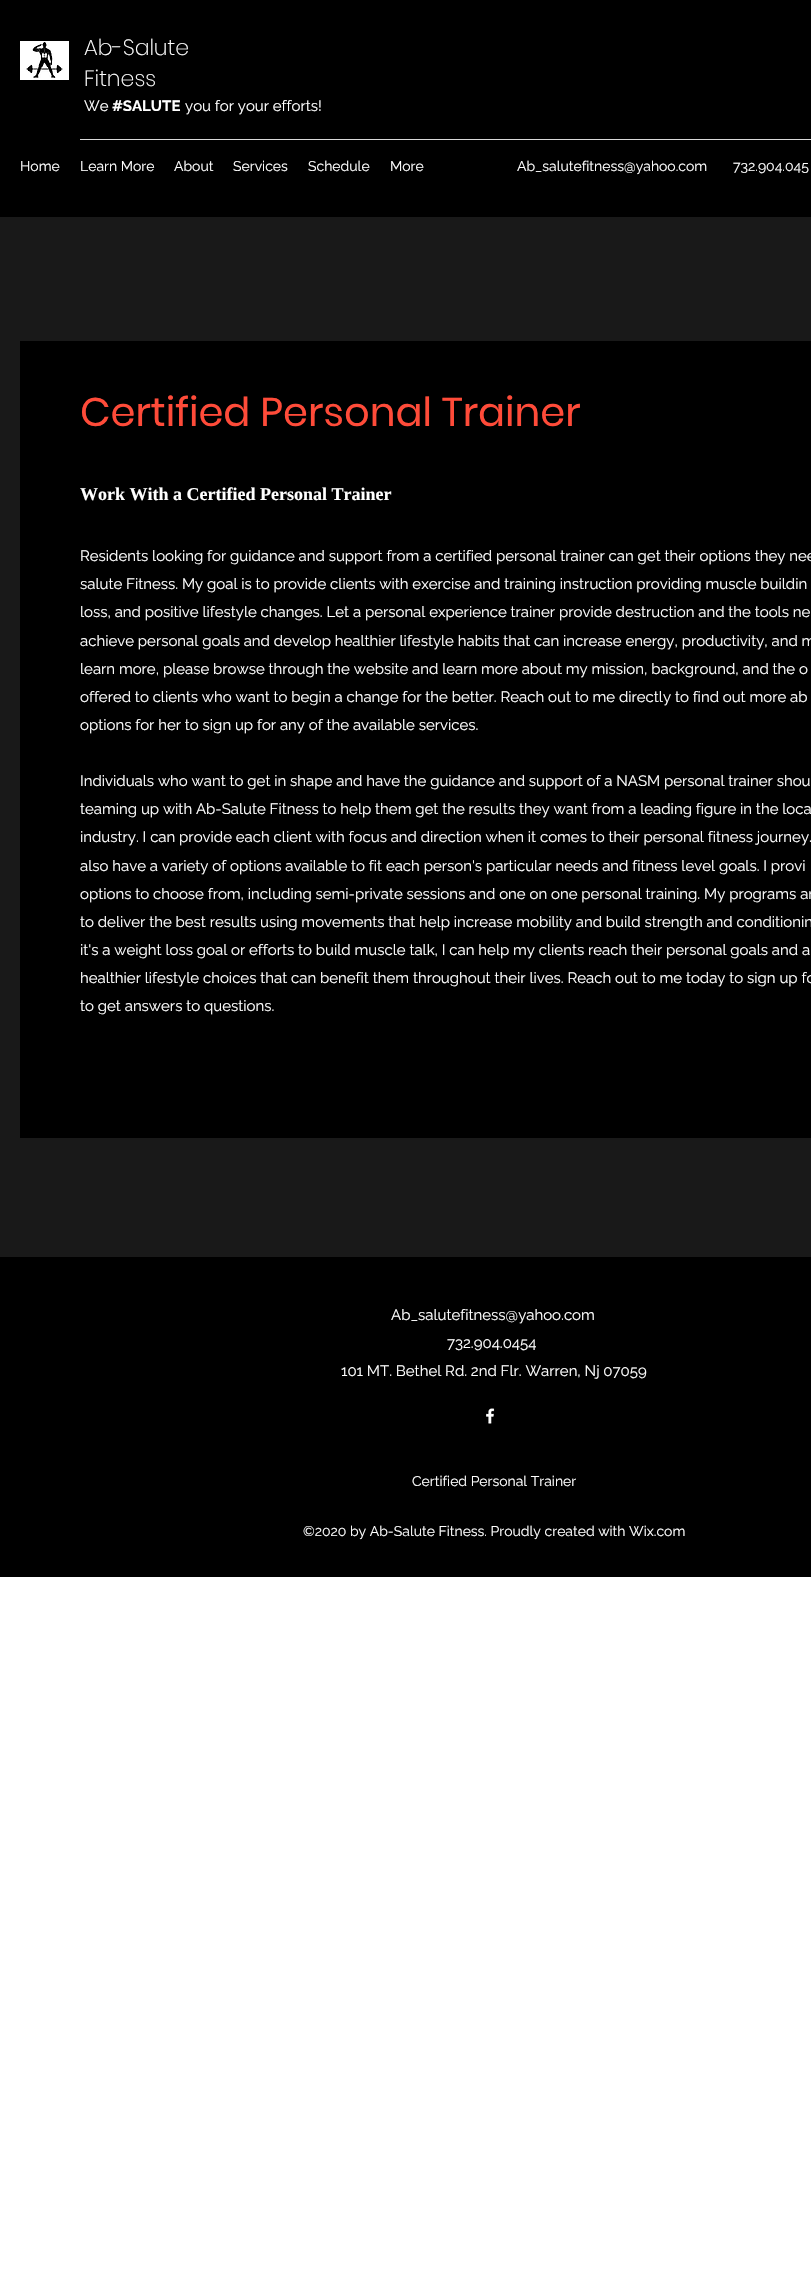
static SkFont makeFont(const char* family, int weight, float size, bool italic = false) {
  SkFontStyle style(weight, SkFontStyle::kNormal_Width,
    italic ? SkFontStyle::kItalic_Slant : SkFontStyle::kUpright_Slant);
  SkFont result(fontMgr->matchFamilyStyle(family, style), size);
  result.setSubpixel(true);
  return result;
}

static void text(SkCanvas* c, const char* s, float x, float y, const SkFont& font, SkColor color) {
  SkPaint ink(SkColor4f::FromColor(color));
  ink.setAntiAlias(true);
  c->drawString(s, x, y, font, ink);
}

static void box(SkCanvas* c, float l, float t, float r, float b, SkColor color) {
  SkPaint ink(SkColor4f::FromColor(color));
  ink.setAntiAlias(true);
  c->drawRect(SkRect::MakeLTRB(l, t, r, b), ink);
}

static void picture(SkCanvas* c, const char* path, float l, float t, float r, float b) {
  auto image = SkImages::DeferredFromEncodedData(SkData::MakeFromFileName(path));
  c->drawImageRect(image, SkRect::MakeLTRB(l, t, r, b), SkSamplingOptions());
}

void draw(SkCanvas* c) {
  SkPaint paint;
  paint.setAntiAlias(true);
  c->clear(0xffffffff);
  box(c, 0, 0, 811, 217, 0xff000000);
  picture(c, "img_01.png", 20, 41, 69, 80);
  SkFont face1 = makeFont("Poppins", 200, 22);
  text(c, "Ab-Salute", 84, 55, face1, 0xffffffff);
  text(c, "Fitness", 84, 86, face1, 0xffffffff);
  SkFont face2 = makeFont("Raleway", 400, 15);
  text(c, "We", 84, 111, face2, 0xffffffff);
  SkFont face3 = makeFont("Raleway", 700, 15);
  text(c, "#SALUTE", 112, 111, face3, 0xffffffff);
  text(c, "you for your efforts!", 185, 111, face2, 0xffffffff);
  box(c, 80, 139, 811, 140, 0xffd9d9d9);
  SkFont face4 = makeFont("Raleway", 400, 14);
  text(c, "Home", 20, 171, face4, 0xffffffff);
  text(c, "Learn More", 80, 171, face4, 0xffffffff);
  text(c, "About", 174, 171, face4, 0xffffffff);
  text(c, "Services", 233, 171, face4, 0xffffffff);
  text(c, "Schedule", 308, 171, face4, 0xffffffff);
  text(c, "More", 390, 171, face4, 0xffffffff);
  text(c, "Ab_salutefitness@yahoo.com", 517, 171, face4, 0xffffffff);
  text(c, "732.904.045", 733, 171, face4, 0xffffffff);
  box(c, 0, 217, 811, 1257, 0xff191919);
  box(c, 20, 341, 811, 1138, 0xff000000);
  SkFont face5 = makeFont("Poppins", 400, 40);
  text(c, "Certified Personal Trainer", 80, 426, face5, 0xffff4b39);
  SkFont face6 = makeFont("Liberation Serif", 700, 18);
  text(c, "Work With a Certified Personal Trainer", 80, 500, face6, 0xffffffff);
  text(c, "Residents looking for guidance and support from a certified personal trainer can get their options they nee", 80, 561, face2, 0xffffffff);
  text(c, "salute Fitness. My goal is to provide clients with exercise and training instruction providing muscle buildin", 80, 589, face2, 0xffffffff);
  text(c, "loss, and positive lifestyle changes. Let a personal experience trainer provide destruction and the tools ne", 80, 617, face2, 0xffffffff);
  text(c, "achieve personal goals and develop healthier lifestyle habits that can increase energy, productivity, and m", 80, 646, face2, 0xffffffff);
  text(c, "learn more, please browse through the website and learn more about my mission, background, and the o", 80, 674, face2, 0xffffffff);
  text(c, "offered to clients who want to begin a change for the better. Reach out to me directly to find out more ab", 80, 702, face2, 0xffffffff);
  text(c, "options for her to sign up for any of the available services.", 80, 730, face2, 0xffffffff);
  text(c, "Individuals who want to get in shape and have the guidance and support of a NASM personal trainer shou", 80, 786, face2, 0xffffffff);
  text(c, "teaming up with Ab-Salute Fitness to help them get the results they want from a leading figure in the loca", 80, 814, face2, 0xffffffff);
  text(c, "industry. I can provide each client with focus and direction when it comes to their personal fitness journey.", 80, 842, face2, 0xffffffff);
  text(c, "also have a variety of options available to fit each person's particular needs and fitness level goals. I provi", 80, 871, face2, 0xffffffff);
  text(c, "options to choose from, including semi-private sessions and one on one personal training. My programs ar", 80, 899, face2, 0xffffffff);
  text(c, "to deliver the best results using movements that help increase mobility and build strength and conditionin", 80, 927, face2, 0xffffffff);
  text(c, "it's a weight loss goal or efforts to build muscle talk, I can help my clients reach their personal goals and a", 80, 955, face2, 0xffffffff);
  text(c, "healthier lifestyle choices that can benefit them throughout their lives. Reach out to me today to sign up fo", 80, 983, face2, 0xffffffff);
  text(c, "to get answers to questions.", 80, 1011, face2, 0xffffffff);
  box(c, 0, 1257, 811, 1577, 0xff000000);
  text(c, "Ab_salutefitness@yahoo.com", 391, 1320, face2, 0xffffffff);
  text(c, "732.904.0454", 447, 1348, face2, 0xffffffff);
  text(c, "101 MT. Bethel Rd. 2nd Flr. Warren, Nj 07059", 341, 1376, face2, 0xffffffff);
  picture(c, "img_02.png", 486, 1408, 495, 1424);
  text(c, "Certified Personal Trainer", 412, 1486, face4, 0xffffffff);
  text(c, "©2020 by Ab-Salute Fitness. Proudly created with Wix.com", 303, 1536, face4, 0xffffffff);
}
